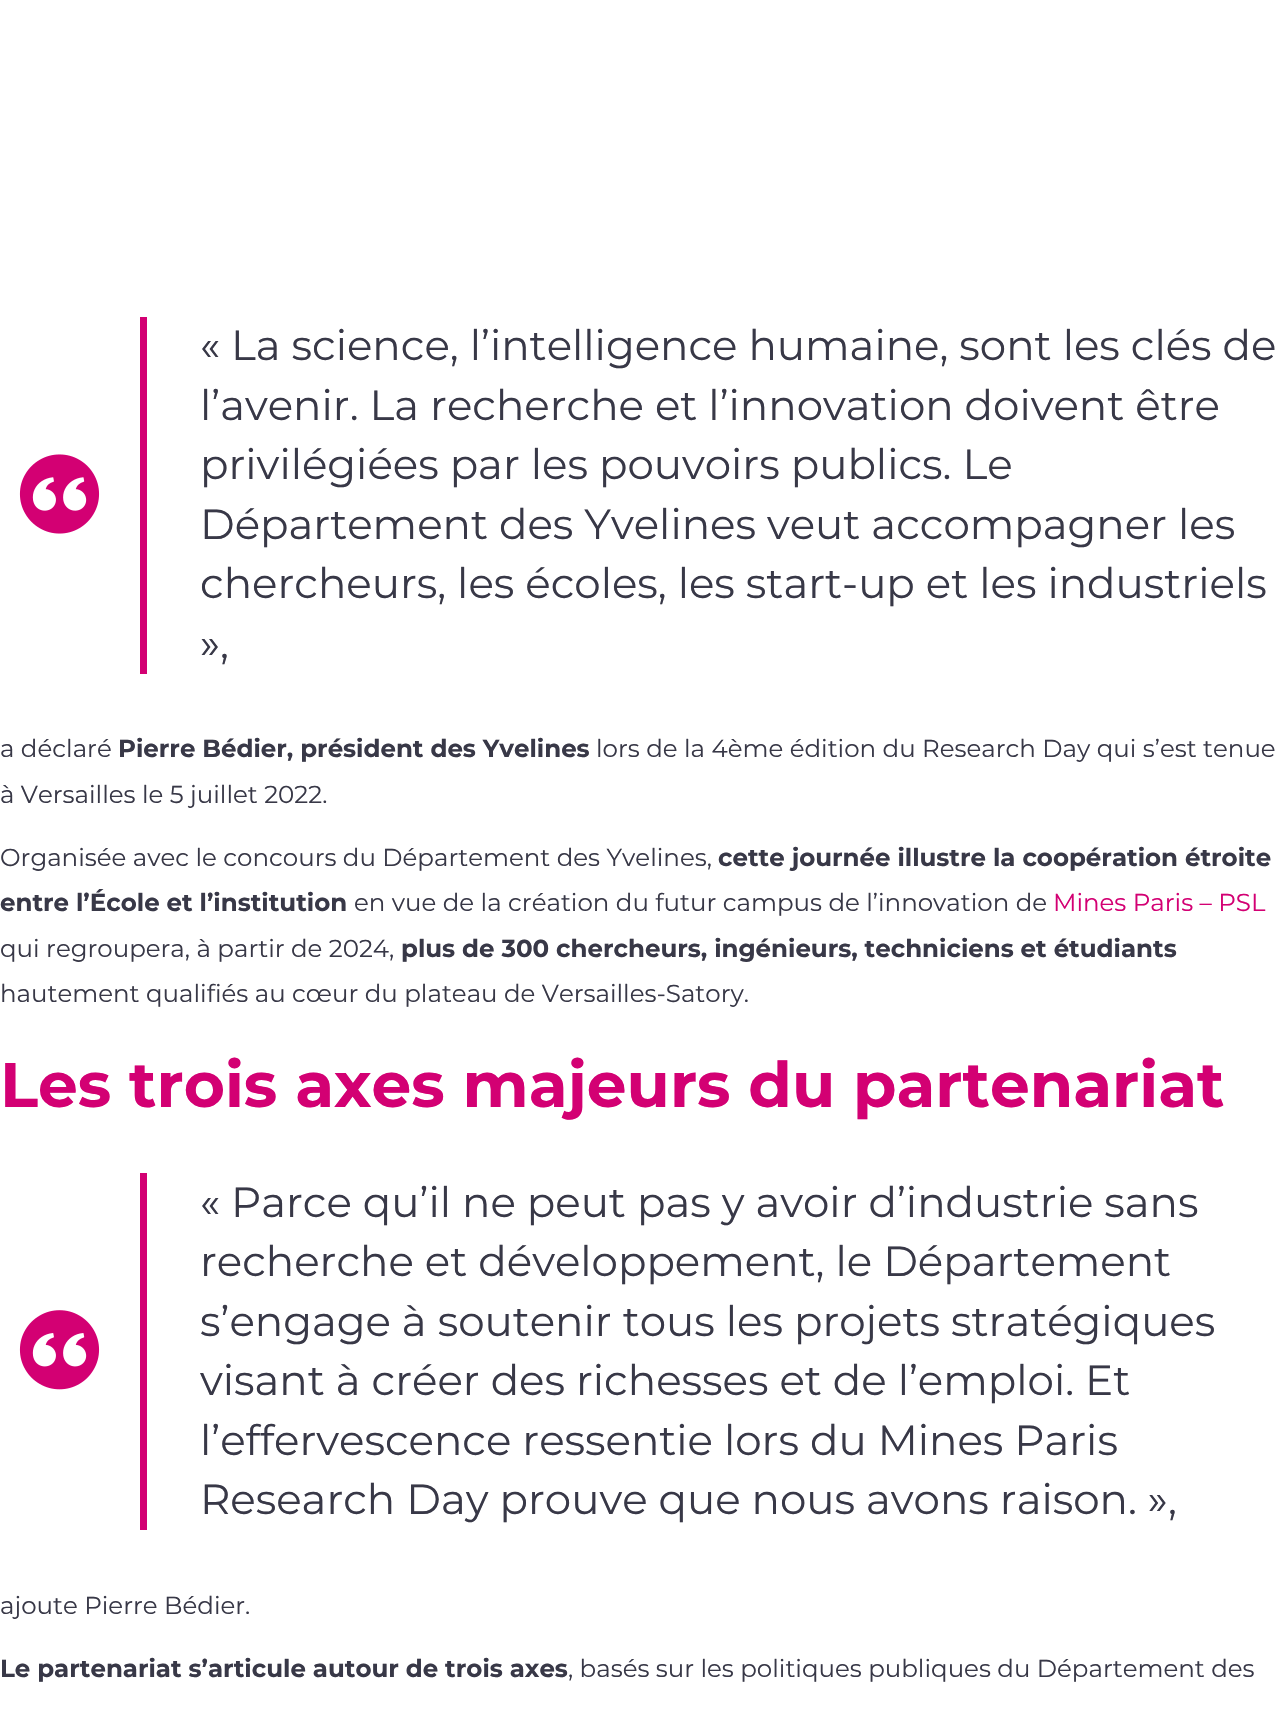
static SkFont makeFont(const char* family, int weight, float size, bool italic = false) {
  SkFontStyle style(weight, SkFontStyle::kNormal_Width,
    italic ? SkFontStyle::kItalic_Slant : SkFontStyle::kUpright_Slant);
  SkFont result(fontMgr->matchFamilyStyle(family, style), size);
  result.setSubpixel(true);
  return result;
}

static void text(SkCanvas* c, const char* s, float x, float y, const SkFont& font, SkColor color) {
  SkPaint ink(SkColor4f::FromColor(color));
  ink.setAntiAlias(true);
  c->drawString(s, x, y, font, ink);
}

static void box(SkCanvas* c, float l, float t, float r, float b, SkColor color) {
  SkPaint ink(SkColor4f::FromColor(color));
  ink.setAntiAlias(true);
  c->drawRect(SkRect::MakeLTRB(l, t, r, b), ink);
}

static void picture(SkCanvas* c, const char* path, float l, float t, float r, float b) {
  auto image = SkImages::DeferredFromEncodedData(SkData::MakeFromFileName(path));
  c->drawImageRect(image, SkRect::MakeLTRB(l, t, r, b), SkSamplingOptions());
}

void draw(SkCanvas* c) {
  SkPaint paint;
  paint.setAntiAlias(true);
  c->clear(0xffffffff);
  box(c, 140, 317, 147, 674, 0xffd30073);
  picture(c, "img_01.png", 19, 454, 100, 534);
  SkFont face1 = makeFont("Montserrat", 400, 42);
  text(c, "« La science, l’intelligence humaine, sont les clés de", 200, 360, face1, 0xff383847);
  text(c, "l’avenir. La recherche et l’innovation doivent être", 200, 420, face1, 0xff383847);
  text(c, "privilégiées par les pouvoirs publics. Le", 200, 479, face1, 0xff383847);
  text(c, "Département des Yvelines veut accompagner les", 200, 539, face1, 0xff383847);
  text(c, "chercheurs, les écoles, les start-up et les industriels", 200, 598, face1, 0xff383847);
  text(c, "»,", 200, 658, face1, 0xff383847);
  SkFont face2 = makeFont("Montserrat", 400, 24.5f);
  text(c, "a déclaré", 0, 757, face2, 0xff383847);
  SkFont face3 = makeFont("Montserrat", 700, 24.5f);
  text(c, "Pierre Bédier, président des Yvelines", 118, 757, face3, 0xff383847);
  text(c, "lors de la 4ème édition du Research Day qui s’est tenue", 596, 757, face2, 0xff383847);
  text(c, "à Versailles le 5 juillet 2022.", 0, 803, face2, 0xff383847);
  text(c, "Organisée avec le concours du Département des Yvelines,", 0, 866, face2, 0xff383847);
  text(c, "cette journée illustre la coopération étroite", 718, 866, face3, 0xff383847);
  text(c, "entre l’École et l’institution", 0, 911, face3, 0xff383847);
  text(c, "en vue de la création du futur campus de l’innovation de", 354, 911, face2, 0xff383847);
  text(c, "Mines Paris – PSL", 1053, 911, face2, 0xffd30073);
  text(c, "qui regroupera, à partir de 2024,", 0, 957, face2, 0xff383847);
  text(c, "plus de 300 chercheurs, ingénieurs, techniciens et étudiants", 401, 957, face3, 0xff383847);
  text(c, "hautement qualifiés au cœur du plateau de Versailles-Satory.", 0, 1002, face2, 0xff383847);
  SkFont face4 = makeFont("Montserrat", 700, 63);
  text(c, "Les trois axes majeurs du partenariat", 0, 1107, face4, 0xffd30073);
  box(c, 140, 1173, 147, 1530, 0xffd30073);
  picture(c, "img_02.png", 19, 1310, 100, 1390);
  text(c, "« Parce qu’il ne peut pas y avoir d’industrie sans", 200, 1217, face1, 0xff383847);
  text(c, "recherche et développement, le Département", 200, 1276, face1, 0xff383847);
  text(c, "s’engage à soutenir tous les projets stratégiques", 200, 1336, face1, 0xff383847);
  text(c, "visant à créer des richesses et de l’emploi. Et", 200, 1395, face1, 0xff383847);
  text(c, "l’effervescence ressentie lors du Mines Paris", 200, 1455, face1, 0xff383847);
  text(c, "Research Day prouve que nous avons raison. »,", 200, 1514, face1, 0xff383847);
  text(c, "ajoute Pierre Bédier.", 0, 1614, face2, 0xff383847);
  text(c, "Le partenariat s’articule autour de trois axes", 0, 1677, face3, 0xff383847);
  text(c, ", basés sur les politiques publiques du Département des", 568, 1677, face2, 0xff383847);
}
